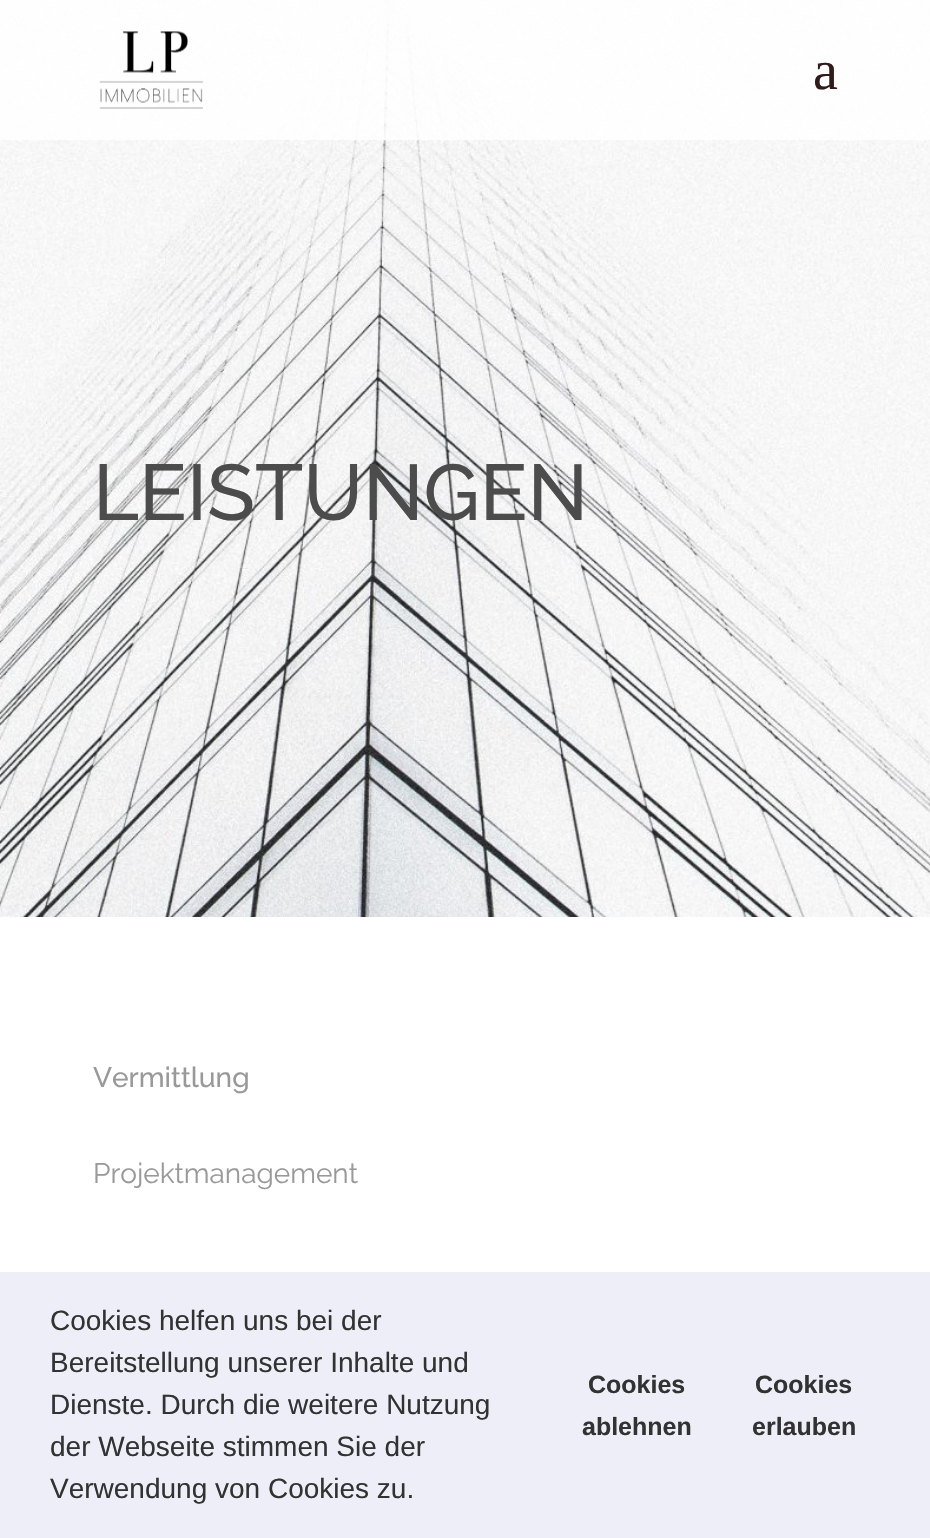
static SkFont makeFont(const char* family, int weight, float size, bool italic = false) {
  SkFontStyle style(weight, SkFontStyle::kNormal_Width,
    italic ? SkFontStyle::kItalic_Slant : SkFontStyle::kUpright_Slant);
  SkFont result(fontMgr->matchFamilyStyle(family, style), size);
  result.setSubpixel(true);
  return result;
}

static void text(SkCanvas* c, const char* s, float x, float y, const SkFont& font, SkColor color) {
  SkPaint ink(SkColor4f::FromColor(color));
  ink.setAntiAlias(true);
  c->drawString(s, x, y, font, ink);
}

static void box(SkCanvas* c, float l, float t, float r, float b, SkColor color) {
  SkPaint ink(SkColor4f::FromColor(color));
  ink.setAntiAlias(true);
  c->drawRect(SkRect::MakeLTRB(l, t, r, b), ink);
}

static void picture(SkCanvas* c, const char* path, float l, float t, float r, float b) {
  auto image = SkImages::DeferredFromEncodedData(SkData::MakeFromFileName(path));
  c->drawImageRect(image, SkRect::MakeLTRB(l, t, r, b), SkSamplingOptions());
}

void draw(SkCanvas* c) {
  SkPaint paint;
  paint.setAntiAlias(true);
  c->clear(0xffffffff);
  picture(c, "img_02.png", 0, 0, 930, 917);
  box(c, 0, 0, 930, 140, 0xcfffffff);
  picture(c, "img_01.png", 99, 31, 203, 109);
  SkFont face1 = makeFont("Liberation Serif", 400, 56);
  text(c, "a", 813, 89, face1, 0xff301b1b);
  SkFont face2 = makeFont("Raleway", 100, 78.75f);
  text(c, "LEISTUNGEN", 93, 520, face2, 0xff4c4c4c);
  SkFont face3 = makeFont("Raleway", 100, 28);
  text(c, "Vermittlung", 93, 1087, face3, 0xff999999);
  SkFont face4 = makeFont("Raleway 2", 100, 28);
  text(c, "Projektmanagement", 93, 1183, face4, 0xff999999);
  box(c, 0, 1272, 930, 1538, 0xffeeeef8);
  SkFont face5 = makeFont("Liberation Sans", 400, 28);
  text(c, "Cookies helfen uns bei der", 50, 1330, face5, 0xff333232);
  text(c, "Bereitstellung unserer Inhalte und", 50, 1372, face5, 0xff333232);
  text(c, "Dienste. Durch die weitere Nutzung", 50, 1414, face5, 0xff333232);
  text(c, "der Webseite stimmen Sie der", 50, 1456, face5, 0xff333232);
  text(c, "Verwendung von Cookies zu.", 50, 1498, face5, 0xff333232);
  SkFont face6 = makeFont("Liberation Sans", 700, 25);
  text(c, "Cookies", 588, 1393, face6, 0xff333232);
  text(c, "ablehnen", 582, 1435, face6, 0xff333232);
  text(c, "Cookies", 755, 1393, face6, 0xff333232);
  text(c, "erlauben", 752, 1435, face6, 0xff333232);
}
